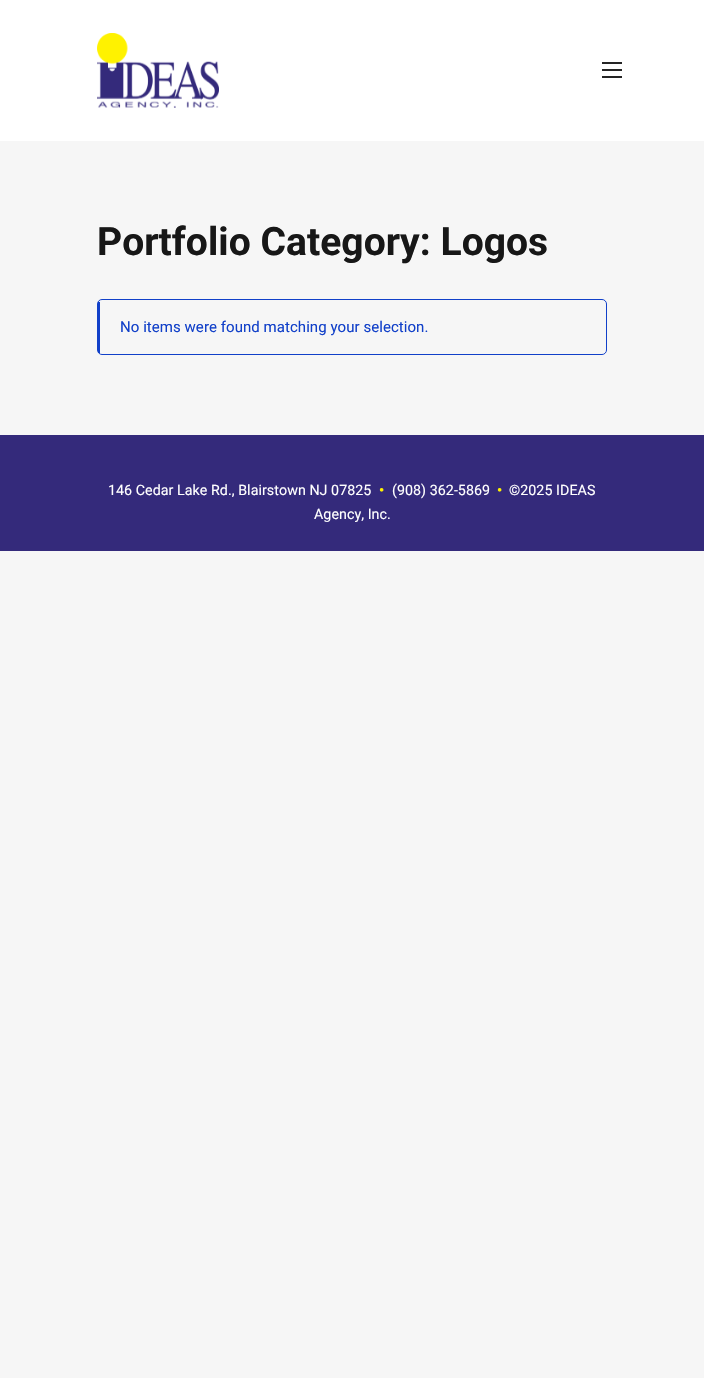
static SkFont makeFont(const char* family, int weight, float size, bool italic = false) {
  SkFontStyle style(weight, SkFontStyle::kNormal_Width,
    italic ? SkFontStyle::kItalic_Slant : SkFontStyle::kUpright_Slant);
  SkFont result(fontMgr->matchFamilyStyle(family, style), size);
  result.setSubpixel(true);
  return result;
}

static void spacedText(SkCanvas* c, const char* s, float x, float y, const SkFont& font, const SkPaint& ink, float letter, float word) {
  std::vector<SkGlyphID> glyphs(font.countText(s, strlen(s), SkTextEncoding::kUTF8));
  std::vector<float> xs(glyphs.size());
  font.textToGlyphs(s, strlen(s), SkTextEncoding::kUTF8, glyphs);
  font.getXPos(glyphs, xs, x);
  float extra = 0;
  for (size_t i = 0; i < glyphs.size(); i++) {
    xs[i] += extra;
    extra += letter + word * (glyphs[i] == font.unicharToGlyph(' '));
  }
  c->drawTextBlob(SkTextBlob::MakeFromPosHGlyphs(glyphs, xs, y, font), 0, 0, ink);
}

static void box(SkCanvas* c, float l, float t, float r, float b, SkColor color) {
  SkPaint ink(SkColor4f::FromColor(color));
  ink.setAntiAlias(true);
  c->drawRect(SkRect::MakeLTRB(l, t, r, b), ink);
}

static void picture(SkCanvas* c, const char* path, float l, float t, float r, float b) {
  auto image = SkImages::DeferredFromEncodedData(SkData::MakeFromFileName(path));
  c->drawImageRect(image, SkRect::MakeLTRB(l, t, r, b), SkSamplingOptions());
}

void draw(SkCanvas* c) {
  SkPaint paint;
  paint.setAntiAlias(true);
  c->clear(0xfff6f6f6);
  box(c, 0, 0, 704, 141, 0xffffffff);
  picture(c, "img_01.png", 97, 33, 219, 108);
  box(c, 602, 62, 622, 64, 0xff252525);
  box(c, 602, 69, 622, 71, 0xff252525);
  box(c, 602, 76, 622, 78, 0xff252525);
  SkFont face1 = makeFont("Roboto", 700, 39);
  paint.setColor(0xff171717);
  spacedText(c, "Portfolio Category: Logos", 97, 255, face1, paint, 0.05f, 0);
  paint.setStyle(SkPaint::kStroke_Style);
  paint.setStrokeWidth(1);
  paint.setColor(0xff1140c9);
  c->drawRoundRect(SkRect::MakeLTRB(97.5f, 299.5f, 606.5f, 354.5f), 4.5f, 4.5f, paint);
  box(c, 98, 302, 100, 353, 0xff1140c9);
  SkFont face2 = makeFont("Roboto", 400, 15);
  paint.setStyle(SkPaint::kFill_Style);
  spacedText(c, "No items were found matching your selection.", 120, 332, face2, paint, 0.05f, 0);
  box(c, 0, 435, 704, 551, 0xff342a7b);
  SkFont face3 = makeFont("Roboto", 400, 14.25f);
  paint.setColor(0xffffffff);
  spacedText(c, "146 Cedar Lake Rd., Blairstown NJ 07825", 108, 495, face3, paint, 0.05f, 0);
  SkFont face4 = makeFont("Roboto", 700, 14.25f);
  paint.setColor(0xfffff200);
  spacedText(c, "•", 379, 495, face4, paint, 0.05f, 0);
  paint.setColor(0xffffffff);
  spacedText(c, "(908) 362-5869", 392, 495, face3, paint, 0.05f, 0);
  paint.setColor(0xfffff200);
  spacedText(c, "•", 497, 495, face4, paint, 0.05f, 0);
  paint.setColor(0xffffffff);
  spacedText(c, "©2025 IDEAS", 509, 495, face3, paint, 0.05f, 0);
  spacedText(c, "Agency, Inc.", 314, 519, face3, paint, 0.05f, 0);
}
